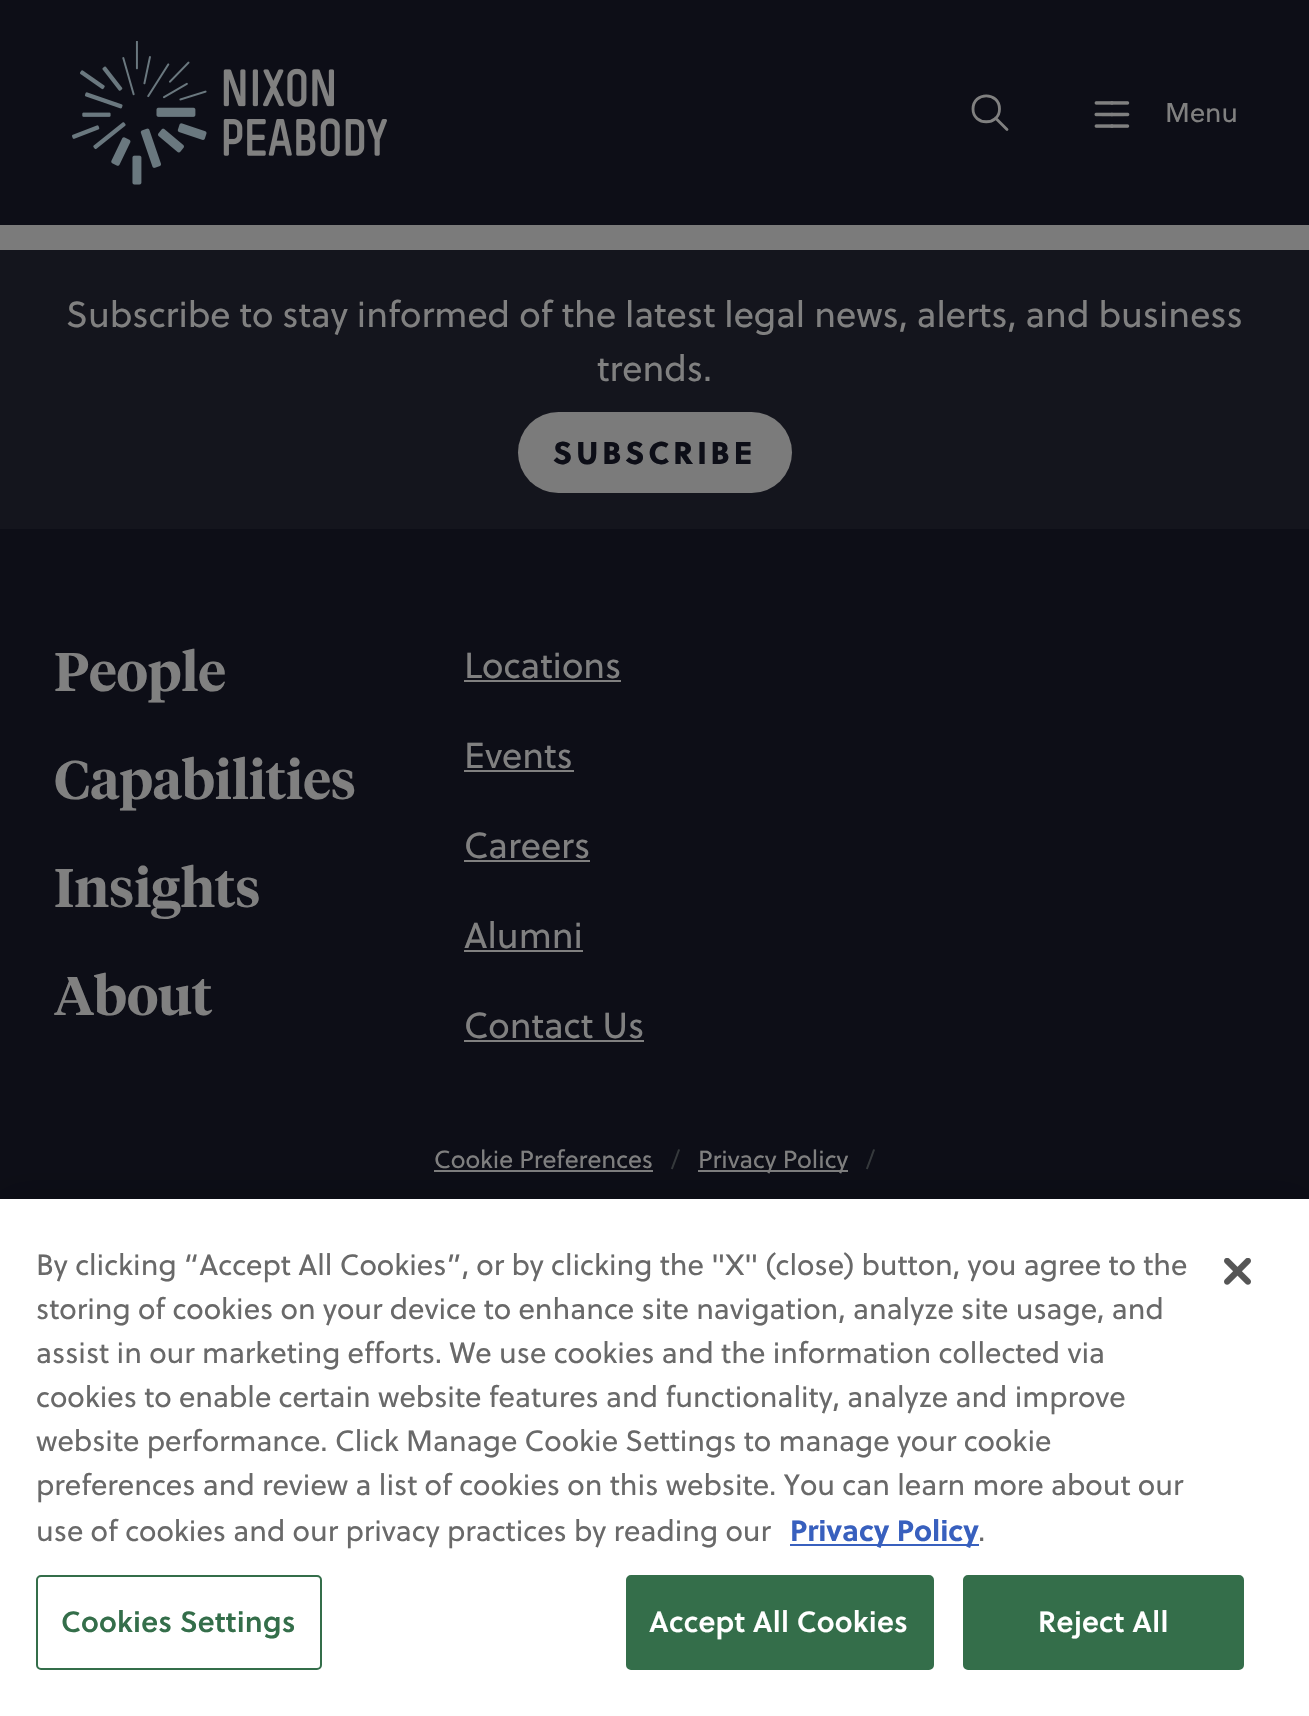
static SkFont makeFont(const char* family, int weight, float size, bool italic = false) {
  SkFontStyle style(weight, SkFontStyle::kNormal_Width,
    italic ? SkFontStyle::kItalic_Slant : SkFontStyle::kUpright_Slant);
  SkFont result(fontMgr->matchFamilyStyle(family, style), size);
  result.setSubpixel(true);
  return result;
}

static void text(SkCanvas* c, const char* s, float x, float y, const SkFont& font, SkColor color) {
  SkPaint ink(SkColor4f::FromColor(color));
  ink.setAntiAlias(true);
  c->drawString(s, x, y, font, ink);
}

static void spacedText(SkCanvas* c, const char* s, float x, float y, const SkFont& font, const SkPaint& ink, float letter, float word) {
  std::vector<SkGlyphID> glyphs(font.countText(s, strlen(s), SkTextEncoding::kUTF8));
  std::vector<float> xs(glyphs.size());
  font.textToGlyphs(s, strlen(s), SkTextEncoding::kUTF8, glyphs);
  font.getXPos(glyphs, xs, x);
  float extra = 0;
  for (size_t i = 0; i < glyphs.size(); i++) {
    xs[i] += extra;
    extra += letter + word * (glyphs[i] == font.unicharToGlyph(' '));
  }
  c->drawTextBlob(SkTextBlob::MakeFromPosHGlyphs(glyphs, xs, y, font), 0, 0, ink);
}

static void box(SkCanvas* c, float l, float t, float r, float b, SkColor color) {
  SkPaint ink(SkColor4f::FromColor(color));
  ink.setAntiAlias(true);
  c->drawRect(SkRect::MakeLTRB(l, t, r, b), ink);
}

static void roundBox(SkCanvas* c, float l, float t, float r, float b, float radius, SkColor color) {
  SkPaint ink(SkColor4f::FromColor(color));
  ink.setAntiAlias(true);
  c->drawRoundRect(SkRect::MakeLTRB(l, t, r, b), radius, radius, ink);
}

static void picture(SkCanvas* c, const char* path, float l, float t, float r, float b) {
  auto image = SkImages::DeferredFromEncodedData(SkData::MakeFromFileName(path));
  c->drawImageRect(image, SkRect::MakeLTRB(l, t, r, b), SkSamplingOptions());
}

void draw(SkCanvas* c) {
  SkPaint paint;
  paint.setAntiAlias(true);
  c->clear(0xff7b7b7b);
  box(c, 0, 0, 1309, 225, 0xff0d0e17);
  picture(c, "img_01.png", 72, 41, 387, 185);
  paint.setStyle(SkPaint::kStroke_Style);
  paint.setStrokeWidth(2.8f);
  paint.setStrokeCap(SkPaint::kRound_Cap);
  paint.setStrokeJoin(SkPaint::kRound_Join);
  paint.setColor(0xff808080);
  c->drawPath(SkPathBuilder().moveTo(1007, 129.5f).lineTo(995.5f, 118).moveTo(999.5f, 109).cubicTo(999.5f, 126, 973, 126, 973, 109).cubicTo(973, 91.5f, 999.5f, 91.5f, 999.5f, 109).close().detach(), paint);
  picture(c, "img_02.png", 1094, 101, 1130, 128);
  SkFont face1 = makeFont("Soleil", 400, 27);
  text(c, "Menu", 1165, 122, face1, 0xff808080);
  box(c, 0, 250, 1309, 529, 0xff14151d);
  SkFont face2 = makeFont("Soleil", 400, 36);
  text(c, "Subscribe to stay informed of the latest legal news, alerts, and business", 66, 327, face2, 0xff808080);
  text(c, "trends.", 597, 381, face2, 0xff808080);
  roundBox(c, 518, 412, 792, 493, 40.5f, 0xff7b7b7b);
  SkFont face3 = makeFont("Soleil", 800, 31.5f);
  paint.setStyle(SkPaint::kFill_Style);
  paint.setColor(0xff0d0e17);
  spacedText(c, "SUBSCRIBE", 553, 464, face3, paint, 3.75f, 0);
  box(c, 0, 529, 1309, 1199, 0xff0d0e17);
  SkFont face4 = makeFont("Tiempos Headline", 600, 54);
  text(c, "People", 54, 691, face4, 0xff808080);
  text(c, "Capabilities", 54, 799, face4, 0xff808080);
  text(c, "Insights", 54, 907, face4, 0xff808080);
  text(c, "About", 54, 1015, face4, 0xff808080);
  text(c, "Locations", 464, 678, face2, 0xff808080);
  box(c, 464, 680, 621, 682, 0xff808080);
  text(c, "Events", 464, 768, face2, 0xff808080);
  box(c, 464, 770, 574, 772, 0xff808080);
  text(c, "Careers", 464, 858, face2, 0xff808080);
  box(c, 464, 860, 590, 862, 0xff808080);
  text(c, "Alumni", 464, 948, face2, 0xff808080);
  box(c, 464, 950, 583, 952, 0xff808080);
  text(c, "Contact Us", 464, 1038, face2, 0xff808080);
  box(c, 464, 1040, 644, 1042, 0xff808080);
  SkFont face5 = makeFont("Soleil", 400, 24.75f);
  text(c, "Cookie Preferences", 434, 1168, face5, 0xff808080);
  box(c, 434, 1170, 653, 1172, 0xff808080);
  text(c, "/", 671, 1168, face5, 0xff35393c);
  box(c, 698, 1170, 848, 1172, 0xff808080);
  text(c, "Privacy Policy", 698, 1168, face5, 0xff808080);
  text(c, "/", 866, 1168, face5, 0xff35393c);
  paint.setColor(0x33000000);
  paint.setMaskFilter(SkMaskFilter::MakeBlur(kNormal_SkBlurStyle, 20));
  c->drawRect(SkRect::MakeLTRB(0, 1199, 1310, 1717), paint);
  paint.setMaskFilter(nullptr);
  box(c, 0, 1199, 1309, 1716, 0xffffffff);
  SkFont face6 = makeFont("Soleil", 400, 29.25f);
  text(c, "By clicking “Accept All Cookies”, or by clicking the \"X\" (close) button, you agree to the", 36, 1275, face6, 0xff696969);
  text(c, "storing of cookies on your device to enhance site navigation, analyze site usage, and", 36, 1319, face6, 0xff696969);
  text(c, "assist in our marketing efforts. We use cookies and the information collected via", 36, 1363, face6, 0xff696969);
  text(c, "cookies to enable certain website features and functionality, analyze and improve", 36, 1407, face6, 0xff696969);
  text(c, "website performance. Click Manage Cookie Settings to manage your cookie", 36, 1451, face6, 0xff696969);
  text(c, "preferences and review a list of cookies on this website. You can learn more about our", 36, 1495, face6, 0xff696969);
  text(c, "use of cookies and our privacy practices by reading our", 36, 1541, face6, 0xff696969);
  box(c, 790, 1544, 979, 1546, 0xff3860be);
  SkFont face7 = makeFont("Soleil", 700, 29.25f);
  text(c, "Privacy Policy", 790, 1541, face7, 0xff3860be);
  text(c, ".", 978, 1541, face6, 0xff696969);
  paint.setStyle(SkPaint::kStroke_Style);
  paint.setStrokeWidth(2);
  paint.setStrokeCap(SkPaint::kButt_Cap);
  paint.setStrokeJoin(SkPaint::kMiter_Join);
  paint.setColor(0xff346e4a);
  c->drawRoundRect(SkRect::MakeLTRB(37, 1576, 321, 1669), 4, 4, paint);
  SkFont face8 = makeFont("Soleil", 600, 29.25f);
  paint.setStyle(SkPaint::kFill_Style);
  spacedText(c, "Cookies Settings", 61, 1632, face8, paint, 0.25f, 0);
  c->drawRoundRect(SkRect::MakeLTRB(627, 1576, 933, 1669), 4, 4, paint);
  paint.setStyle(SkPaint::kStroke_Style);
  c->drawRoundRect(SkRect::MakeLTRB(627, 1576, 933, 1669), 4, 4, paint);
  paint.setStyle(SkPaint::kFill_Style);
  paint.setColor(0xffffffff);
  spacedText(c, "Accept All Cookies", 649, 1632, face8, paint, 0.25f, 0);
  paint.setColor(0xff346e4a);
  c->drawRoundRect(SkRect::MakeLTRB(964, 1576, 1243, 1669), 4, 4, paint);
  paint.setStyle(SkPaint::kStroke_Style);
  c->drawRoundRect(SkRect::MakeLTRB(964, 1576, 1243, 1669), 4, 4, paint);
  paint.setStyle(SkPaint::kFill_Style);
  paint.setColor(0xffffffff);
  spacedText(c, "Reject All", 1038, 1632, face8, paint, 0.25f, 0);
  picture(c, "img_03.png", 1224, 1258, 1251, 1285);
}
